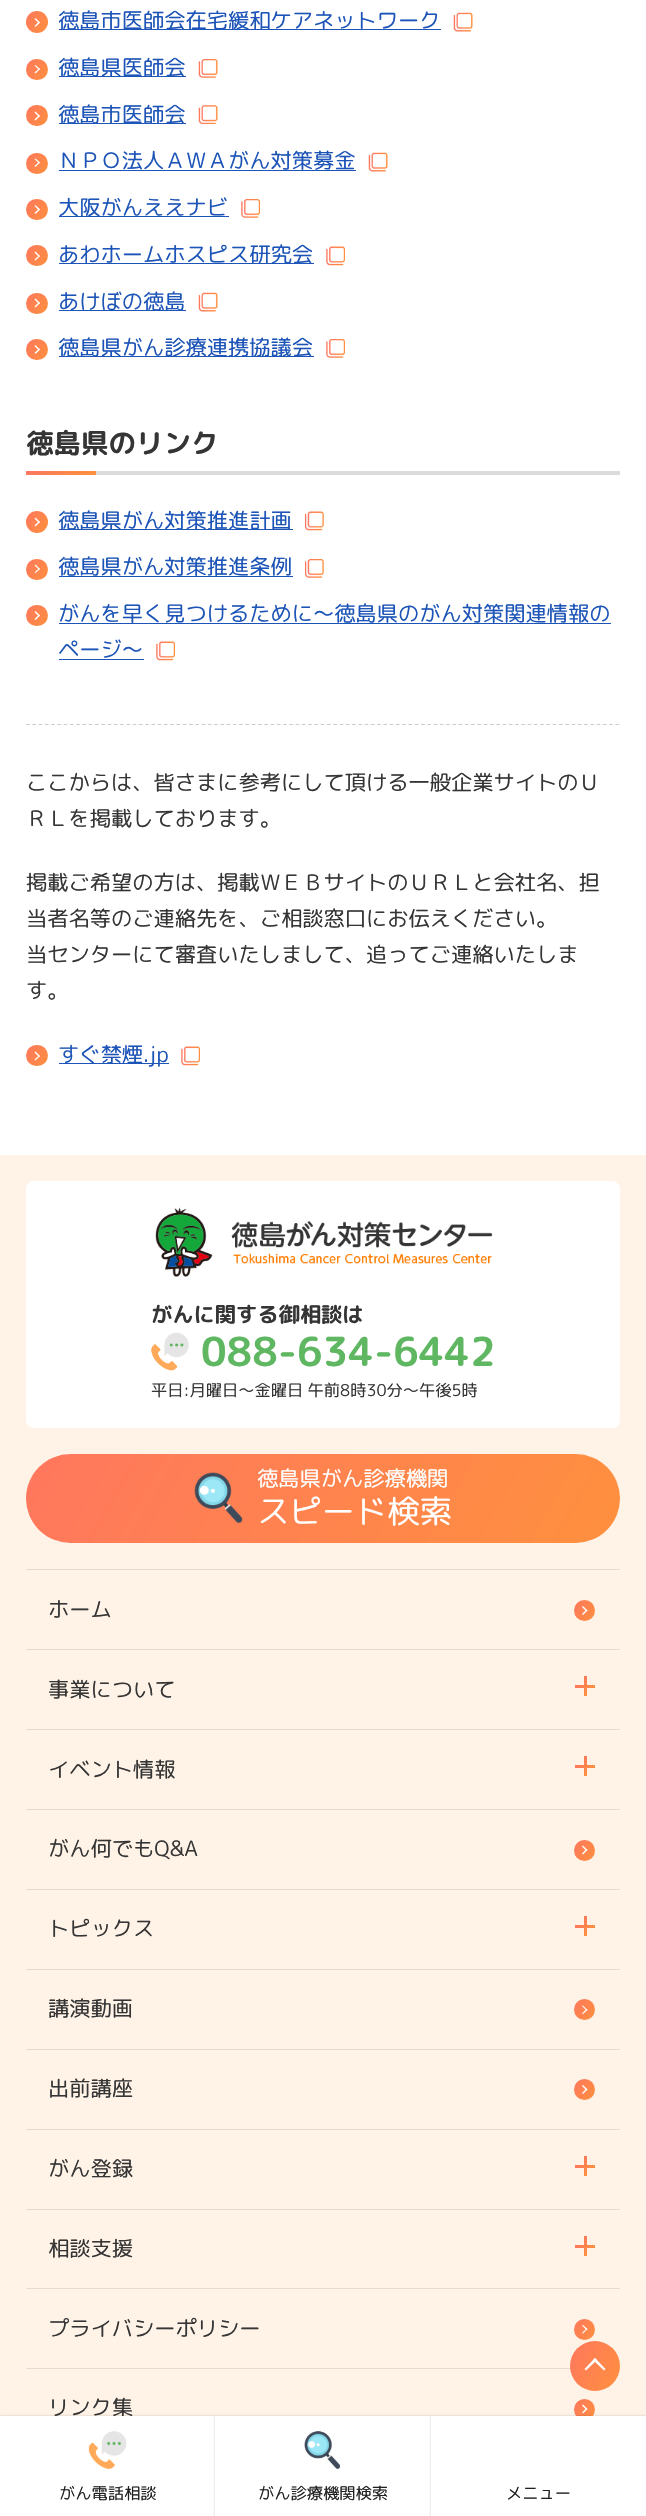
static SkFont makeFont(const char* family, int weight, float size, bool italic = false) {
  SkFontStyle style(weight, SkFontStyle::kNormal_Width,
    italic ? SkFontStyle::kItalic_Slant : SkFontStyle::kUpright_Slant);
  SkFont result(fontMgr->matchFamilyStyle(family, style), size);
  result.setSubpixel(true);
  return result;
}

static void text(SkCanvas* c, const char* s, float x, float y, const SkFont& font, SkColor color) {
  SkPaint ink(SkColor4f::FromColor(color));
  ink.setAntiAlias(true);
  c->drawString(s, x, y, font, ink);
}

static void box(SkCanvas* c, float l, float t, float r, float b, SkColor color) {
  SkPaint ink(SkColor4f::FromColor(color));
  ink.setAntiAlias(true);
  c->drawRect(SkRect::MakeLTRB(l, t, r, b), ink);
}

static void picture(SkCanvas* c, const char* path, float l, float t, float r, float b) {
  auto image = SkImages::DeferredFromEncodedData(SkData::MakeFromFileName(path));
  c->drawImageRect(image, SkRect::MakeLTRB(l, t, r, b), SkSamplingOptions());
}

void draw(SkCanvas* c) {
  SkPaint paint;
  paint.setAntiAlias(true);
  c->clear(0xffffffff);
  {
    const SkColor colors[] = {0xffff775e, 0xffff903e};
    const float stops[] = {0, 1};
    const SkPoint ends[] = {{24, 15}, {49, 29}};
    paint.setShader(SkGradientShader::MakeLinear(ends, colors, stops, 2, SkTileMode::kClamp));
    paint.setAlpha(255);
  }
  c->drawCircle(37, 22, 11, paint);
  box(c, 59, 29, 441, 30, 0xff1c54b7);
  SkFont face1 = makeFont("Rounded Mplus 1c", 400, 21.25f);
  text(c, "徳島市医師会在宅緩和ケアネットワーク", 58, 28, face1, 0xff1c54b7);
  picture(c, "img_01.png", 453, 12, 473, 32);
  paint.setShader(nullptr);
  paint.setColor(0xffffffff);
  c->drawPath(SkPathBuilder().moveTo(39, 23.5f).lineTo(34.5f, 19).lineTo(35.5f, 18).lineTo(40, 22.5f).close().detach(), paint);
  {
    const SkColor colors[] = {0xffff775e, 0xffff903e};
    const float stops[] = {0, 1};
    const SkPoint ends[] = {{24, 62}, {49, 77}};
    paint.setShader(SkGradientShader::MakeLinear(ends, colors, stops, 2, SkTileMode::kClamp));
    paint.setAlpha(255);
  }
  c->drawRoundRect(SkRect::MakeLTRB(26, 59, 48, 80), 10.5f, 10.5f, paint);
  paint.setShader(nullptr);
  paint.setColor(0xffffffff);
  c->drawPath(SkPathBuilder().moveTo(35.5f, 27).lineTo(34.5f, 26).lineTo(39, 21.5f).lineTo(40, 22.5f).close().moveTo(39, 70).lineTo(34.5f, 65.5f).lineTo(35.5f, 65).lineTo(40, 69).close().detach(), paint);
  box(c, 59, 76, 186, 77, 0xff1c54b7);
  text(c, "徳島県医師会", 58, 75, face1, 0xff1c54b7);
  picture(c, "img_02.png", 198, 59, 218, 78);
  {
    const SkColor colors[] = {0xffff775e, 0xffff903e};
    const float stops[] = {0, 1};
    const SkPoint ends[] = {{24, 108}, {49, 123}};
    paint.setShader(SkGradientShader::MakeLinear(ends, colors, stops, 2, SkTileMode::kClamp));
    paint.setAlpha(255);
  }
  c->drawRoundRect(SkRect::MakeLTRB(26, 105, 48, 126), 10.5f, 10.5f, paint);
  paint.setShader(nullptr);
  paint.setColor(0xffffffff);
  c->drawPath(SkPathBuilder().moveTo(35.5f, 73.5f).lineTo(34.5f, 72.5f).lineTo(39, 68.5f).lineTo(40, 69).close().moveTo(39, 117).lineTo(34.5f, 112.5f).lineTo(35.5f, 111.5f).lineTo(40, 116).close().detach(), paint);
  box(c, 59, 123, 186, 124, 0xff1c54b7);
  text(c, "徳島市医師会", 58, 122, face1, 0xff1c54b7);
  picture(c, "img_03.png", 198, 105, 218, 124);
  {
    const SkColor colors[] = {0xffff775e, 0xffff903e};
    const float stops[] = {0, 1};
    const SkPoint ends[] = {{24, 156}, {49, 170}};
    paint.setShader(SkGradientShader::MakeLinear(ends, colors, stops, 2, SkTileMode::kClamp));
    paint.setAlpha(255);
  }
  c->drawRoundRect(SkRect::MakeLTRB(26, 153, 48, 174), 10.5f, 10.5f, paint);
  paint.setShader(nullptr);
  paint.setColor(0xffffffff);
  c->drawPath(SkPathBuilder().moveTo(35.5f, 120.5f).lineTo(34.5f, 119.5f).lineTo(39, 115).lineTo(40, 116).close().moveTo(39, 163.5f).lineTo(34.5f, 159).lineTo(35.5f, 158.5f).lineTo(40, 162.5f).close().detach(), paint);
  text(c, "ＮＰＯ法人ＡＷＡがん対策募金", 58, 168, face1, 0xff1c54b7);
  box(c, 59, 170, 356, 171, 0xff1c54b7);
  picture(c, "img_04.png", 368, 152, 388, 172);
  {
    const SkColor colors[] = {0xffff775e, 0xffff903e};
    const float stops[] = {0, 1};
    const SkPoint ends[] = {{24, 202}, {49, 217}};
    paint.setShader(SkGradientShader::MakeLinear(ends, colors, stops, 2, SkTileMode::kClamp));
    paint.setAlpha(255);
  }
  c->drawRoundRect(SkRect::MakeLTRB(26, 199, 48, 220), 10.5f, 10.5f, paint);
  paint.setShader(nullptr);
  paint.setColor(0xffffffff);
  c->drawPath(SkPathBuilder().moveTo(35.5f, 167).lineTo(34.5f, 166).lineTo(39, 162).lineTo(40, 162.5f).close().moveTo(39, 210.5f).lineTo(34.5f, 206).lineTo(35.5f, 205).lineTo(40, 209.5f).close().detach(), paint);
  box(c, 59, 216, 229, 217, 0xff1c54b7);
  text(c, "大阪がんええナビ", 58, 215, face1, 0xff1c54b7);
  picture(c, "img_05.png", 241, 199, 260, 218);
  {
    const SkColor colors[] = {0xffff775e, 0xffff903e};
    const float stops[] = {0, 1};
    const SkPoint ends[] = {{24, 248}, {49, 263}};
    paint.setShader(SkGradientShader::MakeLinear(ends, colors, stops, 2, SkTileMode::kClamp));
    paint.setAlpha(255);
  }
  c->drawRoundRect(SkRect::MakeLTRB(26, 245, 48, 266), 10.5f, 10.5f, paint);
  paint.setShader(nullptr);
  paint.setColor(0xffffffff);
  c->drawPath(SkPathBuilder().moveTo(35.5f, 214).lineTo(34.5f, 213).lineTo(39, 208.5f).lineTo(40, 209.5f).close().moveTo(39, 257).lineTo(34.5f, 252.5f).lineTo(35.5f, 251.5f).lineTo(40, 256).close().detach(), paint);
  box(c, 59, 263, 314, 264, 0xff1c54b7);
  text(c, "あわホームホスピス研究会", 58, 262, face1, 0xff1c54b7);
  picture(c, "img_06.png", 326, 246, 345, 266);
  {
    const SkColor colors[] = {0xffff775e, 0xffff903e};
    const float stops[] = {0, 1};
    const SkPoint ends[] = {{24, 296}, {49, 310}};
    paint.setShader(SkGradientShader::MakeLinear(ends, colors, stops, 2, SkTileMode::kClamp));
    paint.setAlpha(255);
  }
  c->drawRoundRect(SkRect::MakeLTRB(26, 293, 48, 314), 10.5f, 10.5f, paint);
  paint.setShader(nullptr);
  paint.setColor(0xffffffff);
  c->drawPath(SkPathBuilder().moveTo(35.5f, 260.5f).lineTo(34.5f, 259.5f).lineTo(39, 255.5f).lineTo(40, 256).close().moveTo(39, 304).lineTo(34.5f, 299.5f).lineTo(35.5f, 298.5f).lineTo(40, 303).close().detach(), paint);
  box(c, 59, 310, 186, 311, 0xff1c54b7);
  text(c, "あけぼの徳島", 58, 309, face1, 0xff1c54b7);
  picture(c, "img_01.png", 198, 292, 218, 312);
  {
    const SkColor colors[] = {0xffff775e, 0xffff903e};
    const float stops[] = {0, 1};
    const SkPoint ends[] = {{24, 342}, {49, 357}};
    paint.setShader(SkGradientShader::MakeLinear(ends, colors, stops, 2, SkTileMode::kClamp));
    paint.setAlpha(255);
  }
  c->drawRoundRect(SkRect::MakeLTRB(26, 339, 48, 360), 10.5f, 10.5f, paint);
  paint.setShader(nullptr);
  paint.setColor(0xffffffff);
  c->drawPath(SkPathBuilder().moveTo(35.5f, 307.5f).lineTo(34.5f, 306.5f).lineTo(39, 302).lineTo(40, 303).close().moveTo(39, 350.5f).lineTo(34.5f, 346).lineTo(35.5f, 345).lineTo(40, 349.5f).close().detach(), paint);
  box(c, 59, 356, 314, 357, 0xff1c54b7);
  text(c, "徳島県がん診療連携協議会", 58, 355, face1, 0xff1c54b7);
  picture(c, "img_07.png", 326, 339, 345, 358);
  c->drawPath(SkPathBuilder().moveTo(35.5f, 354).lineTo(34.5f, 353).lineTo(39, 348.5f).lineTo(40, 349.5f).close().detach(), paint);
  box(c, 96, 471, 620, 475, 0xffdbdbdb);
  SkFont face2 = makeFont("Rounded Mplus 1c Bold", 700, 27.5f);
  text(c, "徳島県のリンク", 26, 453, face2, 0xff353535);
  {
    const SkColor colors[] = {0xffff775e, 0xffff903e};
    const float stops[] = {0, 1};
    const SkPoint ends[] = {{34, 458}, {88, 489}};
    paint.setShader(SkGradientShader::MakeLinear(ends, colors, stops, 2, SkTileMode::kClamp));
    paint.setAlpha(255);
  }
  c->drawRect(SkRect::MakeLTRB(26, 471, 96, 475), paint);
  {
    const SkColor colors[] = {0xffff775e, 0xffff903e};
    const float stops[] = {0, 1};
    const SkPoint ends[] = {{24, 515}, {49, 529}};
    paint.setShader(SkGradientShader::MakeLinear(ends, colors, stops, 2, SkTileMode::kClamp));
    paint.setAlpha(255);
  }
  c->drawCircle(37, 522, 11, paint);
  box(c, 59, 529, 293, 530, 0xff1c54b7);
  text(c, "徳島県がん対策推進計画", 58, 528, face1, 0xff1c54b7);
  picture(c, "img_08.png", 305, 511, 324, 531);
  paint.setShader(nullptr);
  paint.setColor(0xffffffff);
  c->drawPath(SkPathBuilder().moveTo(39, 523).lineTo(34.5f, 518.5f).lineTo(35.5f, 517.5f).lineTo(40, 522).close().detach(), paint);
  {
    const SkColor colors[] = {0xffff775e, 0xffff903e};
    const float stops[] = {0, 1};
    const SkPoint ends[] = {{24, 562}, {49, 577}};
    paint.setShader(SkGradientShader::MakeLinear(ends, colors, stops, 2, SkTileMode::kClamp));
    paint.setAlpha(255);
  }
  c->drawRoundRect(SkRect::MakeLTRB(26, 559, 48, 580), 10.5f, 10.5f, paint);
  paint.setShader(nullptr);
  paint.setColor(0xffffffff);
  c->drawPath(SkPathBuilder().moveTo(35.5f, 526.5f).lineTo(34.5f, 525.5f).lineTo(39, 521).lineTo(40, 522).close().moveTo(39, 569.5f).lineTo(34.5f, 565.5f).lineTo(35.5f, 564.5f).lineTo(40, 569).close().detach(), paint);
  text(c, "徳島県がん対策推進条例", 58, 574, face1, 0xff1c54b7);
  box(c, 59, 576, 293, 577, 0xff1c54b7);
  picture(c, "img_09.png", 305, 559, 324, 578);
  {
    const SkColor colors[] = {0xffff775e, 0xffff903e};
    const float stops[] = {0, 1};
    const SkPoint ends[] = {{24, 608}, {49, 623}};
    paint.setShader(SkGradientShader::MakeLinear(ends, colors, stops, 2, SkTileMode::kClamp));
    paint.setAlpha(255);
  }
  c->drawRoundRect(SkRect::MakeLTRB(26, 605, 48, 626), 10.5f, 10.5f, paint);
  paint.setShader(nullptr);
  paint.setColor(0xffffffff);
  c->drawPath(SkPathBuilder().moveTo(35.5f, 573).lineTo(34.5f, 572.5f).lineTo(39, 568).lineTo(40, 569).close().moveTo(39, 616.5f).lineTo(34.5f, 612).lineTo(35.5f, 611).lineTo(40, 615.5f).close().detach(), paint);
  text(c, "がんを早く見つけるために～徳島県のがん対策関連情報の", 58, 621, face1, 0xff1c54b7);
  box(c, 59, 623, 611, 624, 0xff1c54b7);
  c->drawPath(SkPathBuilder().moveTo(35.5f, 620).lineTo(34.5f, 619).lineTo(39, 614.5f).lineTo(40, 615.5f).close().detach(), paint);
  text(c, "ページ～", 58, 657, face1, 0xff1c54b7);
  box(c, 59, 659, 144, 660, 0xff1c54b7);
  picture(c, "img_06.png", 156, 641, 175, 661);
  paint.setStyle(SkPaint::kStroke_Style);
  paint.setStrokeWidth(1.2f);
  paint.setColor(0xffcccccc);
  paint.setPathEffect(SkDashPathEffect::Make({{3.75f, 2.52f}}, 0));
  c->drawPath(SkPathBuilder().moveTo(26, 724.5f).lineTo(620, 724.5f).detach(), paint);
  paint.setPathEffect(nullptr);
  text(c, "ここからは、皆さまに参考にして頂ける一般企業サイトのＵ", 26, 790, face1, 0xff353535);
  text(c, "ＲＬを掲載しております。", 26, 826, face1, 0xff353535);
  text(c, "掲載ご希望の方は、掲載ＷＥＢサイトのＵＲＬと会社名、担", 26, 890, face1, 0xff353535);
  text(c, "当者名等のご連絡先を、ご相談窓口にお伝えください。", 26, 926, face1, 0xff353535);
  text(c, "当センターにて審査いたしまして、追ってご連絡いたしま", 26, 962, face1, 0xff353535);
  text(c, "す。", 26, 998, face1, 0xff353535);
  paint.setStyle(SkPaint::kFill_Style);
  {
    const SkColor colors[] = {0xffff775e, 0xffff903e};
    const float stops[] = {0, 1};
    const SkPoint ends[] = {{24, 1048}, {49, 1063}};
    paint.setShader(SkGradientShader::MakeLinear(ends, colors, stops, 2, SkTileMode::kClamp));
    paint.setAlpha(255);
  }
  c->drawRoundRect(SkRect::MakeLTRB(26, 1045, 48, 1066), 10.5f, 10.5f, paint);
  box(c, 59, 1063, 169, 1064, 0xff1c54b7);
  text(c, "すぐ禁煙.jp", 58, 1062, face1, 0xff1c54b7);
  picture(c, "img_06.png", 181, 1046, 200, 1066);
  paint.setShader(nullptr);
  paint.setColor(0xffffffff);
  c->drawPath(SkPathBuilder().moveTo(39, 1057).lineTo(34.5f, 1052.5f).lineTo(35.5f, 1051.5f).lineTo(40, 1056).close().detach(), paint);
  c->drawPath(SkPathBuilder().moveTo(35.5f, 1060.5f).lineTo(34.5f, 1059.5f).lineTo(39, 1055.5f).lineTo(40, 1056).close().detach(), paint);
  box(c, 0, 1155, 646, 2416, 0xfffff3e7);
  c->drawPath(SkPathBuilder().moveTo(34, 1181).lineTo(612, 1181).cubicTo(616.5f, 1181, 620, 1184.5f, 620, 1189).lineTo(620, 1303).lineTo(26, 1303).lineTo(26, 1189).cubicTo(26, 1184.5f, 29.5f, 1181, 34, 1181).close().detach(), paint);
  picture(c, "img_10.png", 155, 1207, 493, 1277);
  c->drawPath(SkPathBuilder().moveTo(26, 1303).lineTo(620, 1303).lineTo(620, 1420).cubicTo(620, 1424.5f, 616.5f, 1428, 612, 1428).lineTo(34, 1428).cubicTo(29.5f, 1428, 26, 1424.5f, 26, 1420).close().detach(), paint);
  picture(c, "img_11.png", 151, 1332, 189, 1371);
  SkFont face3 = makeFont("Rounded Mplus 1c Bold", 700, 21.25f);
  text(c, "がんに関する御相談は", 151, 1322, face3, 0xff353535);
  SkFont face4 = makeFont("Rounded Mplus 1c Bold", 700, 40);
  text(c, "088-634-6442", 201, 1366, face4, 0xff5fb762);
  SkFont face5 = makeFont("Rounded Mplus 1c", 400, 16.25f);
  text(c, "平日:月曜日～金曜日 午前8時30分～午後5時", 151, 1396, face5, 0xff353535);
  {
    const SkColor colors[] = {0xffff775e, 0xffff903e};
    const float stops[] = {0, 1};
    const SkPoint ends[] = {{81, 1358}, {565, 1638}};
    paint.setShader(SkGradientShader::MakeLinear(ends, colors, stops, 2, SkTileMode::kClamp));
    paint.setAlpha(255);
  }
  c->drawRoundRect(SkRect::MakeLTRB(26, 1454, 620, 1543), 44.5f, 44.5f, paint);
  picture(c, "img_12.png", 194, 1472, 243, 1523);
  text(c, "徳島県がん診療機関", 257, 1486, face1, 0xffffffff);
  SkFont face6 = makeFont("Rounded Mplus 1c", 400, 32.5f);
  text(c, "スピード検索", 257, 1523, face6, 0xffffffff);
  box(c, 26, 1569, 620, 1570, 0xffe6dbd0);
  box(c, 26, 1649, 620, 1650, 0xffe6dbd0);
  text(c, "ホーム", 48, 1617, face1, 0xff353535);
  {
    const SkColor colors[] = {0xffff775e, 0xffff903e};
    const float stops[] = {0, 1};
    const SkPoint ends[] = {{572, 1603}, {597, 1618}};
    paint.setShader(SkGradientShader::MakeLinear(ends, colors, stops, 2, SkTileMode::kClamp));
    paint.setAlpha(255);
  }
  c->drawCircle(584.5f, 1610.5f, 10.5f, paint);
  paint.setShader(nullptr);
  paint.setColor(0xffffffff);
  c->drawPath(SkPathBuilder().moveTo(582, 1607).lineTo(583, 1606).lineTo(587.5f, 1610.5f).lineTo(586.5f, 1611.5f).close().detach(), paint);
  c->drawPath(SkPathBuilder().moveTo(582, 1614).lineTo(586.5f, 1609.5f).lineTo(587.5f, 1610.5f).lineTo(583, 1615).close().detach(), paint);
  box(c, 26, 1729, 620, 1730, 0xffe6dbd0);
  text(c, "事業について", 48, 1697, face1, 0xff353535);
  {
    const SkColor colors[] = {0xffff775e, 0xffff903e};
    const float stops[] = {0, 1};
    const SkPoint ends[] = {{577, 1682}, {593, 1691}};
    paint.setShader(SkGradientShader::MakeLinear(ends, colors, stops, 2, SkTileMode::kClamp));
    paint.setAlpha(255);
  }
  c->drawRect(SkRect::MakeLTRB(575, 1685, 595, 1688), paint);
  {
    const SkColor colors[] = {0xffff775e, 0xffff903e};
    const float stops[] = {0, 1};
    const SkPoint ends[] = {{580, 1683}, {590, 1689}};
    paint.setShader(SkGradientShader::MakeLinear(ends, colors, stops, 2, SkTileMode::kClamp));
    paint.setAlpha(255);
  }
  c->drawRect(SkRect::MakeLTRB(584, 1676, 587, 1696), paint);
  box(c, 26, 1809, 620, 1810, 0xffe6dbd0);
  text(c, "イベント情報", 48, 1777, face1, 0xff353535);
  {
    const SkColor colors[] = {0xffff775e, 0xffff903e};
    const float stops[] = {0, 1};
    const SkPoint ends[] = {{577, 1762}, {593, 1771}};
    paint.setShader(SkGradientShader::MakeLinear(ends, colors, stops, 2, SkTileMode::kClamp));
    paint.setAlpha(255);
  }
  c->drawRect(SkRect::MakeLTRB(575, 1765, 595, 1768), paint);
  {
    const SkColor colors[] = {0xffff775e, 0xffff903e};
    const float stops[] = {0, 1};
    const SkPoint ends[] = {{580, 1763}, {590, 1769}};
    paint.setShader(SkGradientShader::MakeLinear(ends, colors, stops, 2, SkTileMode::kClamp));
    paint.setAlpha(255);
  }
  c->drawRect(SkRect::MakeLTRB(584, 1756, 587, 1776), paint);
  box(c, 26, 1889, 620, 1890, 0xffe6dbd0);
  text(c, "がん何でもQ&A", 48, 1856, face1, 0xff353535);
  {
    const SkColor colors[] = {0xffff775e, 0xffff903e};
    const float stops[] = {0, 1};
    const SkPoint ends[] = {{572, 1843}, {597, 1858}};
    paint.setShader(SkGradientShader::MakeLinear(ends, colors, stops, 2, SkTileMode::kClamp));
    paint.setAlpha(255);
  }
  c->drawCircle(584.5f, 1850.5f, 10.5f, paint);
  paint.setShader(nullptr);
  paint.setColor(0xffffffff);
  c->drawPath(SkPathBuilder().moveTo(582, 1846.5f).lineTo(583, 1845.5f).lineTo(587.5f, 1850).lineTo(586.5f, 1851).close().detach(), paint);
  c->drawPath(SkPathBuilder().moveTo(582, 1853.5f).lineTo(586.5f, 1849).lineTo(587.5f, 1850).lineTo(583, 1854.5f).close().detach(), paint);
  box(c, 26, 1969, 620, 1970, 0xffe6dbd0);
  text(c, "トピックス", 48, 1936, face1, 0xff353535);
  {
    const SkColor colors[] = {0xffff775e, 0xffff903e};
    const float stops[] = {0, 1};
    const SkPoint ends[] = {{577, 1922}, {593, 1931}};
    paint.setShader(SkGradientShader::MakeLinear(ends, colors, stops, 2, SkTileMode::kClamp));
    paint.setAlpha(255);
  }
  c->drawRect(SkRect::MakeLTRB(575, 1925, 595, 1928), paint);
  {
    const SkColor colors[] = {0xffff775e, 0xffff903e};
    const float stops[] = {0, 1};
    const SkPoint ends[] = {{580, 1923}, {590, 1929}};
    paint.setShader(SkGradientShader::MakeLinear(ends, colors, stops, 2, SkTileMode::kClamp));
    paint.setAlpha(255);
  }
  c->drawRect(SkRect::MakeLTRB(584, 1916, 587, 1936), paint);
  box(c, 26, 2049, 620, 2050, 0xffe6dbd0);
  text(c, "講演動画", 48, 2016, face1, 0xff353535);
  {
    const SkColor colors[] = {0xffff775e, 0xffff903e};
    const float stops[] = {0, 1};
    const SkPoint ends[] = {{572, 2002}, {597, 2017}};
    paint.setShader(SkGradientShader::MakeLinear(ends, colors, stops, 2, SkTileMode::kClamp));
    paint.setAlpha(255);
  }
  c->drawCircle(584.5f, 2009.5f, 10.5f, paint);
  paint.setShader(nullptr);
  paint.setColor(0xffffffff);
  c->drawPath(SkPathBuilder().moveTo(582, 2006).lineTo(583, 2005.5f).lineTo(587.5f, 2010).lineTo(586.5f, 2010.5f).close().detach(), paint);
  c->drawPath(SkPathBuilder().moveTo(582, 2013.5f).lineTo(586.5f, 2009).lineTo(587.5f, 2010).lineTo(583, 2014).close().detach(), paint);
  box(c, 26, 2129, 620, 2130, 0xffe6dbd0);
  text(c, "出前講座", 48, 2096, face1, 0xff353535);
  {
    const SkColor colors[] = {0xffff775e, 0xffff903e};
    const float stops[] = {0, 1};
    const SkPoint ends[] = {{572, 2082}, {597, 2097}};
    paint.setShader(SkGradientShader::MakeLinear(ends, colors, stops, 2, SkTileMode::kClamp));
    paint.setAlpha(255);
  }
  c->drawCircle(584.5f, 2089.5f, 10.5f, paint);
  paint.setShader(nullptr);
  paint.setColor(0xffffffff);
  c->drawPath(SkPathBuilder().moveTo(582, 2086).lineTo(583, 2085).lineTo(587.5f, 2089.5f).lineTo(586.5f, 2090.5f).close().detach(), paint);
  c->drawPath(SkPathBuilder().moveTo(582, 2093).lineTo(586.5f, 2088.5f).lineTo(587.5f, 2089.5f).lineTo(583, 2094).close().detach(), paint);
  box(c, 26, 2209, 620, 2210, 0xffe6dbd0);
  text(c, "がん登録", 48, 2176, face1, 0xff353535);
  {
    const SkColor colors[] = {0xffff775e, 0xffff903e};
    const float stops[] = {0, 1};
    const SkPoint ends[] = {{577, 2162}, {593, 2171}};
    paint.setShader(SkGradientShader::MakeLinear(ends, colors, stops, 2, SkTileMode::kClamp));
    paint.setAlpha(255);
  }
  c->drawRect(SkRect::MakeLTRB(575, 2165, 595, 2168), paint);
  {
    const SkColor colors[] = {0xffff775e, 0xffff903e};
    const float stops[] = {0, 1};
    const SkPoint ends[] = {{580, 2163}, {590, 2169}};
    paint.setShader(SkGradientShader::MakeLinear(ends, colors, stops, 2, SkTileMode::kClamp));
    paint.setAlpha(255);
  }
  c->drawRect(SkRect::MakeLTRB(584, 2156, 587, 2176), paint);
  box(c, 26, 2288, 620, 2289, 0xffe6dbd0);
  text(c, "相談支援", 48, 2256, face1, 0xff353535);
  {
    const SkColor colors[] = {0xffff775e, 0xffff903e};
    const float stops[] = {0, 1};
    const SkPoint ends[] = {{577, 2242}, {593, 2251}};
    paint.setShader(SkGradientShader::MakeLinear(ends, colors, stops, 2, SkTileMode::kClamp));
    paint.setAlpha(255);
  }
  c->drawRect(SkRect::MakeLTRB(575, 2245, 595, 2248), paint);
  {
    const SkColor colors[] = {0xffff775e, 0xffff903e};
    const float stops[] = {0, 1};
    const SkPoint ends[] = {{580, 2243}, {590, 2249}};
    paint.setShader(SkGradientShader::MakeLinear(ends, colors, stops, 2, SkTileMode::kClamp));
    paint.setAlpha(255);
  }
  c->drawRect(SkRect::MakeLTRB(584, 2236, 587, 2256), paint);
  box(c, 26, 2368, 620, 2369, 0xffe6dbd0);
  text(c, "プライバシーポリシー", 48, 2336, face1, 0xff353535);
  {
    const SkColor colors[] = {0xffff775e, 0xffff903e};
    const float stops[] = {0, 1};
    const SkPoint ends[] = {{572, 2322}, {597, 2337}};
    paint.setShader(SkGradientShader::MakeLinear(ends, colors, stops, 2, SkTileMode::kClamp));
    paint.setAlpha(255);
  }
  c->drawCircle(584.5f, 2329.5f, 10.5f, paint);
  paint.setShader(nullptr);
  paint.setColor(0xffffffff);
  c->drawPath(SkPathBuilder().moveTo(582, 2325.5f).lineTo(583, 2325).lineTo(587.5f, 2329).lineTo(586.5f, 2330).close().detach(), paint);
  c->drawPath(SkPathBuilder().moveTo(582, 2333).lineTo(586.5f, 2328.5f).lineTo(587.5f, 2329).lineTo(583, 2333.5f).close().detach(), paint);
  text(c, "リンク集", 48, 2415, face1, 0xff353535);
  {
    const SkColor colors[] = {0xffff775e, 0xffff903e};
    const float stops[] = {0, 1};
    const SkPoint ends[] = {{572, 2402}, {597, 2417}};
    paint.setShader(SkGradientShader::MakeLinear(ends, colors, stops, 2, SkTileMode::kClamp));
    paint.setAlpha(255);
  }
  c->drawCircle(584.5f, 2409.5f, 10.5f, paint);
  paint.setShader(nullptr);
  paint.setColor(0xffffffff);
  c->drawPath(SkPathBuilder().moveTo(582, 2405.5f).lineTo(583, 2404.5f).lineTo(587.5f, 2409).lineTo(586.5f, 2410).close().detach(), paint);
  c->drawPath(SkPathBuilder().moveTo(582, 2412.5f).lineTo(586.5f, 2408).lineTo(587.5f, 2409).lineTo(583, 2413.5f).close().detach(), paint);
  paint.setColor(0x33000000);
  paint.setMaskFilter(SkMaskFilter::MakeBlur(kNormal_SkBlurStyle, 1));
  c->drawRect(SkRect::MakeLTRB(0, 2416, 215, 2516), paint);
  paint.setMaskFilter(nullptr);
  box(c, 0, 2416, 215, 2516, 0xffffffff);
  picture(c, "img_13.png", 88, 2431, 127, 2469);
  text(c, "がん電話相談", 59, 2499, face5, 0xff212121);
  paint.setMaskFilter(SkMaskFilter::MakeBlur(kNormal_SkBlurStyle, 1));
  c->drawRect(SkRect::MakeLTRB(215, 2416, 431, 2516), paint);
  paint.setMaskFilter(nullptr);
  box(c, 215, 2416, 431, 2516, 0xffffffff);
  picture(c, "img_14.png", 304, 2431, 340, 2469);
  text(c, "がん診療機関検索", 258, 2499, face5, 0xff212121);
  paint.setMaskFilter(SkMaskFilter::MakeBlur(kNormal_SkBlurStyle, 1));
  c->drawRect(SkRect::MakeLTRB(431, 2416, 646, 2516), paint);
  paint.setMaskFilter(nullptr);
  box(c, 431, 2416, 646, 2516, 0xffffffff);
  text(c, "メニュー", 506, 2499, face5, 0xff212121);
  {
    const SkColor colors[] = {0xffff775e, 0xffff903e};
    const float stops[] = {0, 1};
    const SkPoint ends[] = {{565, 2349}, {625, 2383}};
    paint.setShader(SkGradientShader::MakeLinear(ends, colors, stops, 2, SkTileMode::kClamp));
    paint.setAlpha(255);
  }
  c->drawCircle(595, 2366, 25, paint);
  paint.setShader(nullptr);
  paint.setColor(0xffffffff);
  c->drawPath(SkPathBuilder().moveTo(597, 2360).lineTo(586, 2370.5f).lineTo(584.5f, 2369).lineTo(595, 2358).close().detach(), paint);
  c->drawPath(SkPathBuilder().moveTo(605.5f, 2369).lineTo(604, 2370.5f).lineTo(593, 2360).lineTo(595, 2358).close().detach(), paint);
}
